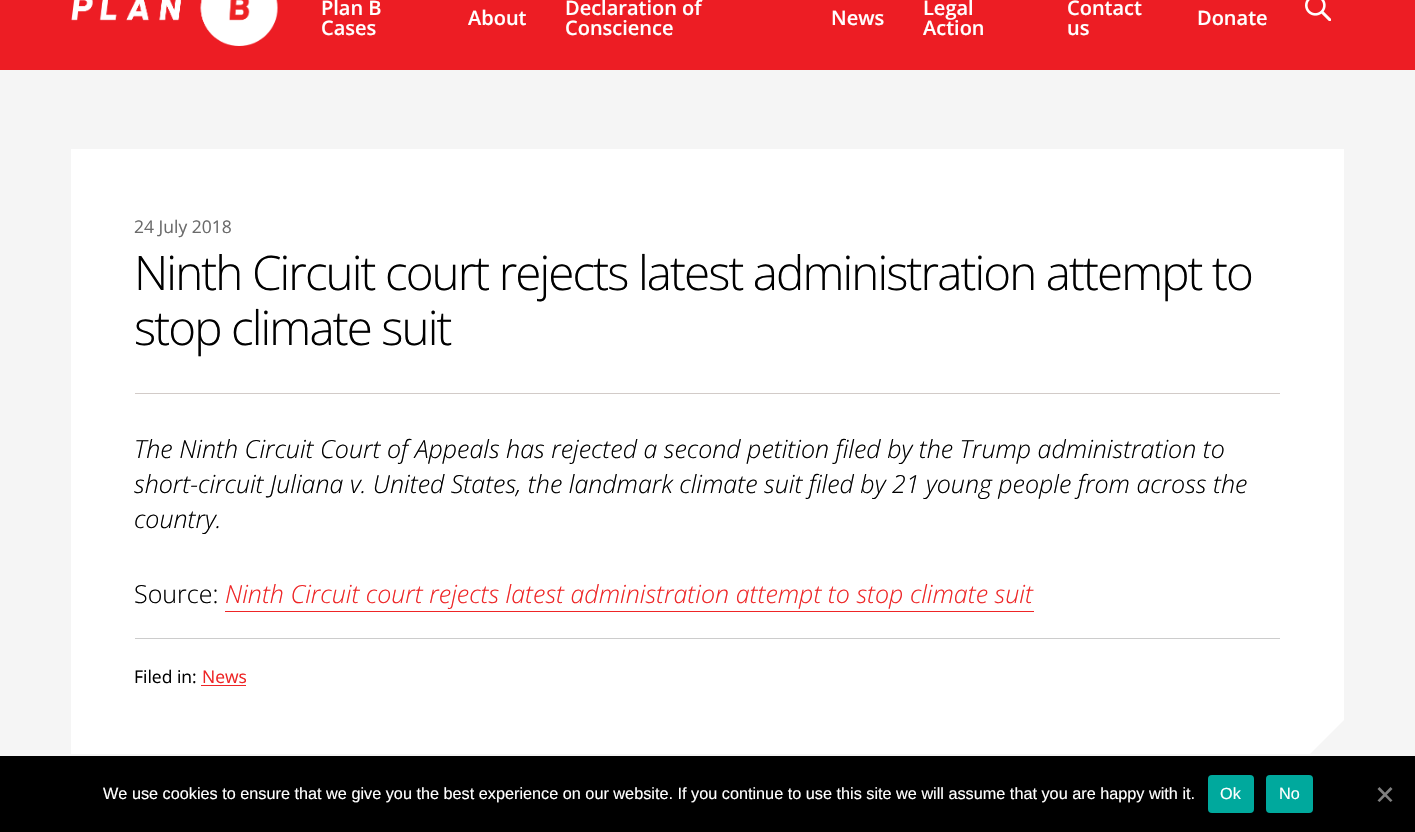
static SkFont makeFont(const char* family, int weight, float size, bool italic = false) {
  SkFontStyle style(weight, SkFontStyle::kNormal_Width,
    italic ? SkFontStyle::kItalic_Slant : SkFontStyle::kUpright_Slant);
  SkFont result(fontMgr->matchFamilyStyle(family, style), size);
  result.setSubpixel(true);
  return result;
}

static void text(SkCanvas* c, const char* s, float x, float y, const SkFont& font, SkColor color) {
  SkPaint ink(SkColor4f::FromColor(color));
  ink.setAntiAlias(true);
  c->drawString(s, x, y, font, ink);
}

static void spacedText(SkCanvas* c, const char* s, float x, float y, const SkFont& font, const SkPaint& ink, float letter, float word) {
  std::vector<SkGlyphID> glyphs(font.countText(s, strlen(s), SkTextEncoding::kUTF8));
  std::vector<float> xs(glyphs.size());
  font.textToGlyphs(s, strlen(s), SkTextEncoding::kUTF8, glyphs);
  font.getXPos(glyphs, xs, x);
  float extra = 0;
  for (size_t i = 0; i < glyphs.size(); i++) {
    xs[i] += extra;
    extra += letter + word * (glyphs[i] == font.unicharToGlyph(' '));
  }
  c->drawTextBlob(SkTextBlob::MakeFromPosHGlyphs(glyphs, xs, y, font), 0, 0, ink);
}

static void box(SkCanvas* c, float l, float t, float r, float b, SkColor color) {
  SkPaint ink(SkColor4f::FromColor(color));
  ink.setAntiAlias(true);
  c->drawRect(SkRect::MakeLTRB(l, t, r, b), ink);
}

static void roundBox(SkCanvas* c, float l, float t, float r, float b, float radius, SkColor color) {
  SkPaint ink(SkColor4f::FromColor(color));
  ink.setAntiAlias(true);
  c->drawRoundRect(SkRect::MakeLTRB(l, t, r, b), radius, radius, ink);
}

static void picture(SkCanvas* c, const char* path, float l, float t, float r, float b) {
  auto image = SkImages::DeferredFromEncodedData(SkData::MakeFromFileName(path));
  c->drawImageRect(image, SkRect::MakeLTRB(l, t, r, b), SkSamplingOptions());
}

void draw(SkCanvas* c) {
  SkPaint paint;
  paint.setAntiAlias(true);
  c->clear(0xfff5f5f5);
  box(c, 0, 0, 1415, 70, 0xffed1d24);
  picture(c, "img_01.png", 71, 0, 278, 46);
  SkFont face1 = makeFont("Open Sans", 600, 20);
  text(c, "Plan B", 321, 15, face1, 0xffffffff);
  text(c, "Cases", 321, 35, face1, 0xffffffff);
  text(c, "About", 468, 25, face1, 0xffffffff);
  text(c, "Declaration of", 565, 15, face1, 0xffffffff);
  text(c, "Conscience", 565, 35, face1, 0xffffffff);
  text(c, "News", 831, 25, face1, 0xffffffff);
  text(c, "Legal", 923, 15, face1, 0xffffffff);
  text(c, "Action", 923, 35, face1, 0xffffffff);
  text(c, "Contact", 1067, 15, face1, 0xffffffff);
  text(c, "us", 1067, 35, face1, 0xffffffff);
  text(c, "Donate", 1197, 25, face1, 0xffffffff);
  picture(c, "img_02.png", 1305, 0, 1331, 21);
  box(c, 71, 149, 1344, 754, 0xffffffff);
  box(c, 135, 393, 1280, 394, 0xffd2cbc8);
  SkFont face2 = makeFont("Open Sans", 400, 17.5f);
  text(c, "24 July 2018", 134, 233, face2, 0xff6b6b6b);
  SkFont face3 = makeFont("Open Sans", 300, 47.5f);
  paint.setColor(0xff000000);
  spacedText(c, "Ninth Circuit court rejects latest administration attempt to", 134, 290, face3, paint, -1.9f, 0);
  spacedText(c, "stop climate suit", 134, 345, face3, paint, -1.9f, 0);
  SkFont face4 = makeFont("Open Sans", 300, 25, true);
  text(c, "The Ninth Circuit Court of Appeals has rejected a second petition filed by the Trump administration to", 134, 458, face4, 0xff000000);
  text(c, "short-circuit Juliana v. United States, the landmark climate suit filed by 21 young people from across the", 134, 493, face4, 0xff000000);
  text(c, "country.", 134, 528, face4, 0xff000000);
  SkFont face5 = makeFont("Open Sans", 300, 25);
  text(c, "Source:", 134, 603, face5, 0xff000000);
  text(c, "Ninth Circuit court rejects latest administration attempt to stop climate suit", 225, 603, face4, 0xffee2526);
  box(c, 225, 611, 1034, 612, 0xffee2526);
  box(c, 135, 638, 1280, 639, 0xffcccccc);
  text(c, "Filed in:", 134, 683, face2, 0xff000000);
  text(c, "News", 202, 683, face2, 0xffee2526);
  box(c, 201, 685, 246, 686, 0xffee2526);
  c->save();
  c->clipRect(SkRect::MakeLTRB(71, 149, 1344, 754));
  paint.setColor(0xfff5f5f5);
  c->drawPath(SkPathBuilder().moveTo(1347, 717).lineTo(1387, 756).lineTo(1347, 796).lineTo(1308, 756).close().detach(), paint);
  c->restore();
  box(c, 0, 756, 1415, 832, 0xff000000);
  SkFont face6 = makeFont("Liberation Sans", 400, 16.25f);
  text(c, "We use cookies to ensure that we give you the best experience on our website. If you continue to use this site we will assume that you are happy with it.", 103, 799, face6, 0xffffffff);
  roundBox(c, 1208, 775, 1254, 813, 4, 0xff00a99d);
  text(c, "Ok", 1220, 799, face6, 0xffffffff);
  roundBox(c, 1266, 775, 1313, 813, 4, 0xff00a99d);
  text(c, "No", 1279, 799, face6, 0xffffffff);
  paint.setColor(0xff808080);
  c->drawPath(SkPathBuilder().moveTo(1390.5f, 787).lineTo(1392.5f, 789).lineTo(1379.5f, 802).lineTo(1377.5f, 800.5f).close().detach(), paint);
  c->drawPath(SkPathBuilder().moveTo(1377.5f, 789).lineTo(1379.5f, 787).lineTo(1392.5f, 800.5f).lineTo(1390.5f, 802).close().detach(), paint);
}
